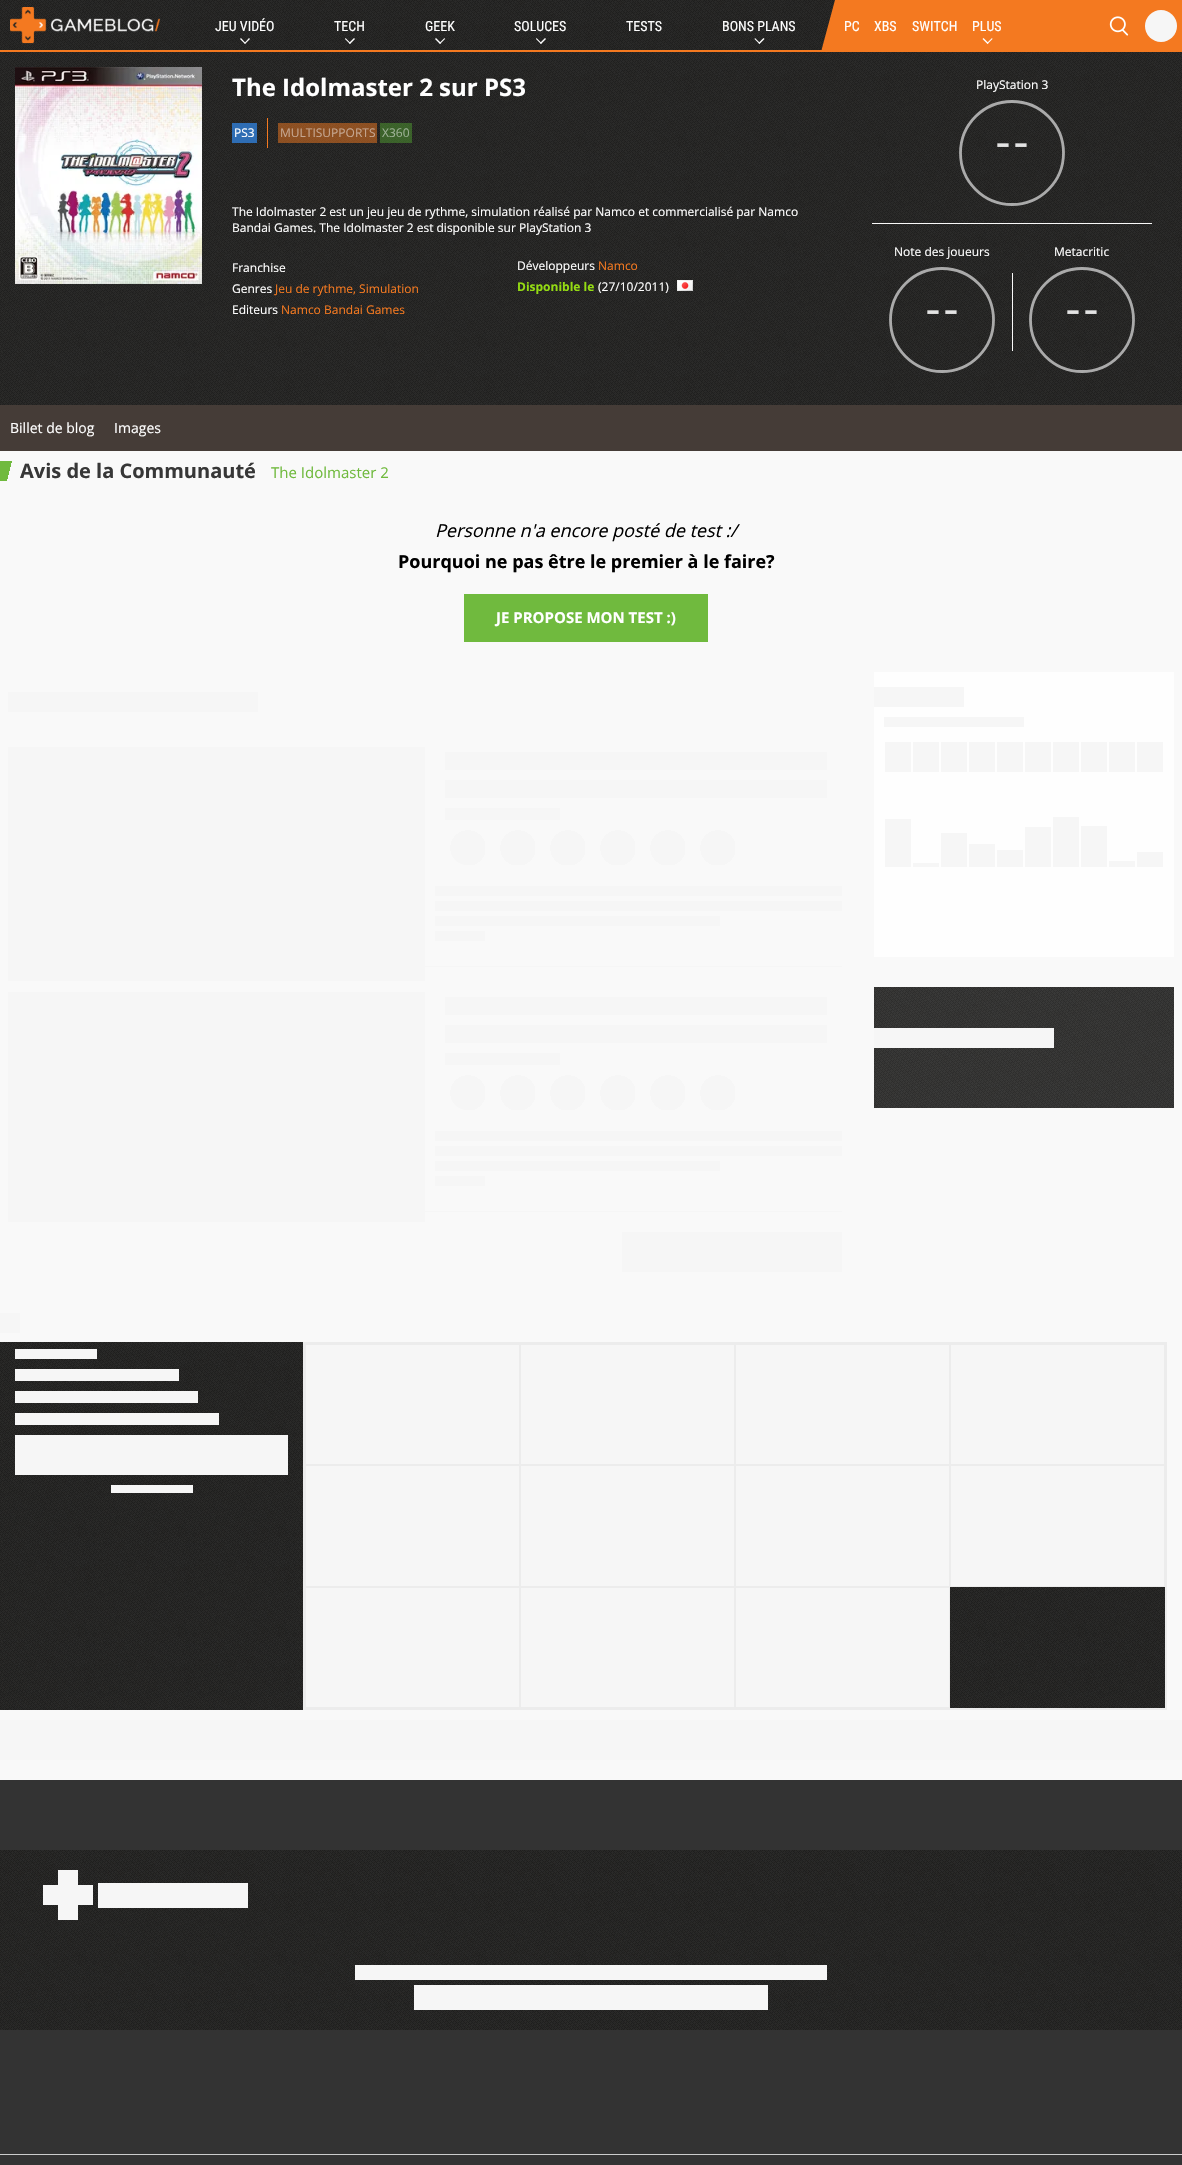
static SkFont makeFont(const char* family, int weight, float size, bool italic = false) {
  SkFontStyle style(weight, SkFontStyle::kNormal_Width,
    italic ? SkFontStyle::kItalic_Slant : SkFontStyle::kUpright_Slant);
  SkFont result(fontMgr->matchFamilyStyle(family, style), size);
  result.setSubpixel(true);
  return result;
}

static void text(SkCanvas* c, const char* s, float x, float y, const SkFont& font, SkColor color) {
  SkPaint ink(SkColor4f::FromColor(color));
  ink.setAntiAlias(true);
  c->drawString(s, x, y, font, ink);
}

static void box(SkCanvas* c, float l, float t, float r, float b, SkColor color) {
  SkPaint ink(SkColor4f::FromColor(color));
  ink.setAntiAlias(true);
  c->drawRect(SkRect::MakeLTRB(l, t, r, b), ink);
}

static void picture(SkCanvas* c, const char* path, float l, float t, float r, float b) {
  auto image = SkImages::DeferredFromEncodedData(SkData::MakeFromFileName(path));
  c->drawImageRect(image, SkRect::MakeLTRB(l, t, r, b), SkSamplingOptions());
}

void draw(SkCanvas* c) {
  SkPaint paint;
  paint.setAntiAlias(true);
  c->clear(0xff333333);
  picture(c, "img_01.png", 0, 0, 835, 50);
  box(c, 0, 50, 822, 52, 0xfff47920);
  picture(c, "img_02.png", 10, 7, 160, 44);
  SkFont face1 = makeFont("Roboto Condensed", 400, 14);
  text(c, "JEU VIDÉO", 215, 31, face1, 0xffffffff);
  paint.setColor(0xffffffff);
  c->drawPath(SkPathBuilder().moveTo(249, 38).lineTo(250, 39).lineTo(245, 44).lineTo(244.5f, 43).close().detach(), paint);
  c->drawPath(SkPathBuilder().moveTo(241, 38).lineTo(245.5f, 43).lineTo(245, 44).lineTo(240, 39).close().detach(), paint);
  text(c, "TECH", 334, 31, face1, 0xffffffff);
  c->drawPath(SkPathBuilder().moveTo(354, 38).lineTo(355, 39).lineTo(350, 44).lineTo(349, 43).close().detach(), paint);
  c->drawPath(SkPathBuilder().moveTo(345.5f, 38).lineTo(350.5f, 43).lineTo(350, 44).lineTo(345, 39).close().detach(), paint);
  text(c, "GEEK", 425, 31, face1, 0xffffffff);
  c->drawPath(SkPathBuilder().moveTo(444.5f, 38).lineTo(445, 39).lineTo(440, 44).lineTo(439.5f, 43).close().detach(), paint);
  c->drawPath(SkPathBuilder().moveTo(436, 38).lineTo(441, 43).lineTo(440, 44).lineTo(435, 39).close().detach(), paint);
  text(c, "SOLUCES", 514, 31, face1, 0xffffffff);
  c->drawPath(SkPathBuilder().moveTo(545, 38).lineTo(546, 39).lineTo(541, 44).lineTo(540, 43).close().detach(), paint);
  c->drawPath(SkPathBuilder().moveTo(536.5f, 38).lineTo(541.5f, 43).lineTo(541, 44).lineTo(536, 39).close().detach(), paint);
  text(c, "TESTS", 626, 31, face1, 0xffffffff);
  text(c, "BONS PLANS", 722, 31, face1, 0xffffffff);
  c->drawPath(SkPathBuilder().moveTo(763.5f, 38).lineTo(764.5f, 39).lineTo(759.5f, 44).lineTo(758.5f, 43).close().detach(), paint);
  c->drawPath(SkPathBuilder().moveTo(755, 38).lineTo(760, 43).lineTo(759.5f, 44).lineTo(754.5f, 39).close().detach(), paint);
  paint.setColor(0xfff47920);
  c->drawPath(SkPathBuilder().moveTo(835, 0).lineTo(821, 52).lineTo(1182, 52).lineTo(1182, 0).close().detach(), paint);
  text(c, "PC", 844, 31, face1, 0xffffffff);
  text(c, "XBS", 874, 31, face1, 0xffffffff);
  text(c, "SWITCH", 912, 31, face1, 0xffffffff);
  text(c, "PLUS", 972, 31, face1, 0xffffffff);
  paint.setColor(0xffffffff);
  c->drawPath(SkPathBuilder().moveTo(992, 38).lineTo(992.5f, 39).lineTo(987.5f, 44).lineTo(987, 43).close().detach(), paint);
  c->drawPath(SkPathBuilder().moveTo(983.5f, 38).lineTo(988.5f, 43).lineTo(987.5f, 44).lineTo(982.5f, 39).close().detach(), paint);
  picture(c, "img_03.png", 1109, 16, 1129, 36);
  paint.setColor(0xfff6f6f6);
  c->drawCircle(1161, 26, 16, paint);
  picture(c, "img_04.png", 0, 52, 1182, 405);
  picture(c, "img_05.png", 15, 67, 202, 284);
  SkFont face2 = makeFont("Open Sans", 700, 24);
  text(c, "The Idolmaster 2 sur PS3", 232, 96, face2, 0xffffffff);
  box(c, 232, 123, 257, 143, 0xff2e6db4);
  SkFont face3 = makeFont("Open Sans", 400, 12);
  text(c, "PS3", 234, 137, face3, 0xffffffff);
  box(c, 267, 118, 268, 148, 0xfff47920);
  box(c, 278, 123, 377, 143, 0x80f47920);
  text(c, "MULTISUPPORTS", 280, 137, face3, 0xffc5a690);
  box(c, 380, 123, 412, 143, 0x80509e2f);
  text(c, "X360", 382, 137, face3, 0xff9cb094);
  text(c, "The Idolmaster 2 est un jeu jeu de rythme, simulation réalisé par Namco et commercialisé par Namco", 232, 216, face3, 0xffffffff);
  text(c, "Bandai Games. The Idolmaster 2 est disponible sur PlayStation 3", 232, 232, face3, 0xffffffff);
  text(c, "Franchise", 232, 272, face3, 0xffffffff);
  text(c, "Genres", 232, 293, face3, 0xffffffff);
  text(c, "Jeu de rythme, Simulation", 275, 293, face3, 0xfff47920);
  text(c, "Editeurs", 232, 314, face3, 0xffffffff);
  text(c, "Namco Bandai Games", 281, 314, face3, 0xfff47920);
  text(c, "Développeurs", 517, 270, face3, 0xffffffff);
  text(c, "Namco", 598, 270, face3, 0xfff47920);
  SkFont face4 = makeFont("Open Sans", 700, 12);
  text(c, "Disponible le", 517, 291, face4, 0xff94db13);
  text(c, "(27/10/2011)", 598, 291, face3, 0xffffffff);
  picture(c, "img_06.png", 677, 280, 693, 291);
  text(c, "PlayStation 3", 976, 89, face3, 0xffffffff);
  paint.setStyle(SkPaint::kStroke_Style);
  paint.setStrokeWidth(2.8f);
  paint.setColor(0xffaaaaaa);
  c->drawPath(SkPathBuilder().moveTo(960.5f, 153).cubicTo(960.5f, 124.5f, 983.5f, 101.5f, 1012, 101.5f).cubicTo(1040.5f, 101.5f, 1063.5f, 124.5f, 1063.5f, 153).cubicTo(1063.5f, 181.5f, 1040.5f, 204.5f, 1012, 204.5f).cubicTo(983.5f, 204.5f, 960.5f, 181.5f, 960.5f, 153).close().detach(), paint);
  SkFont face5 = makeFont("Roboto Slab", 400, 46);
  text(c, "--", 994, 159, face5, 0xffe3e3e3);
  box(c, 872, 223, 1152, 224, 0xfff9f9f9);
  text(c, "Note des joueurs", 894, 256, face3, 0xffffffff);
  c->drawPath(SkPathBuilder().moveTo(890.5f, 320).cubicTo(890.5f, 291.5f, 913.5f, 268.5f, 942, 268.5f).cubicTo(970.5f, 268.5f, 993.5f, 291.5f, 993.5f, 320).cubicTo(993.5f, 348.5f, 970.5f, 371.5f, 942, 371.5f).cubicTo(913.5f, 371.5f, 890.5f, 348.5f, 890.5f, 320).close().detach(), paint);
  text(c, "--", 924, 326, face5, 0xffe3e3e3);
  text(c, "Metacritic", 1054, 256, face3, 0xffffffff);
  box(c, 1012, 273, 1013, 351, 0xfff9f9f9);
  c->drawPath(SkPathBuilder().moveTo(1030.5f, 320).cubicTo(1030.5f, 291.5f, 1053.5f, 268.5f, 1082, 268.5f).cubicTo(1110.5f, 268.5f, 1133.5f, 291.5f, 1133.5f, 320).cubicTo(1133.5f, 348.5f, 1110.5f, 371.5f, 1082, 371.5f).cubicTo(1053.5f, 371.5f, 1030.5f, 348.5f, 1030.5f, 320).close().detach(), paint);
  text(c, "--", 1064, 326, face5, 0xffe3e3e3);
  box(c, 0, 405, 1182, 451, 0xff453c37);
  SkFont face6 = makeFont("Open Sans", 400, 14);
  text(c, "Billet de blog", 10, 433, face6, 0xffffffff);
  text(c, "Images", 114, 433, face6, 0xffffffff);
  box(c, 0, 451, 1182, 1293, 0xfff9f9f9);
  paint.setStyle(SkPaint::kFill_Style);
  {
    const SkColor colors[] = {0xff70ba3e, 0xfff9f9f9};
    const float stops[] = {0.03f, 0.03f};
    const SkPoint ends[] = {{9, 425}, {380, 517}};
    paint.setShader(SkGradientShader::MakeLinear(ends, colors, stops, 2, SkTileMode::kClamp));
    paint.setAlpha(255);
  }
  c->drawRect(SkRect::MakeLTRB(0, 461, 12, 481), paint);
  SkFont face7 = makeFont("Open Sans", 700, 20);
  text(c, "Avis de la Communauté", 20, 478, face7, 0xff373737);
  SkFont face8 = makeFont("Open Sans", 400, 15);
  text(c, "The Idolmaster 2", 271, 478, face8, 0xff70ba3e);
  SkFont face9 = makeFont("Open Sans", 400, 18, true);
  text(c, "Personne n'a encore posté de test :/", 435, 537, face9, 0xff000000);
  SkFont face10 = makeFont("Open Sans", 700, 18);
  text(c, "Pourquoi ne pas être le premier à le faire?", 398, 568, face10, 0xff000000);
  box(c, 464, 594, 708, 642, 0xff70ba3e);
  SkFont face11 = makeFont("Open Sans", 700, 15);
  text(c, "JE PROPOSE MON TEST :)", 496, 623, face11, 0xffffffff);
  box(c, 8, 692, 258, 712, 0xfff6f6f6);
  box(c, 425, 966, 842, 967, 0xfff6f6f6);
  box(c, 8, 747, 425, 981, 0xfff6f6f6);
  box(c, 445, 752, 827, 770, 0xfff6f6f6);
  box(c, 445, 780, 827, 798, 0xfff6f6f6);
  box(c, 445, 808, 560, 820, 0xfff6f6f6);
  {
    const SkColor colors[] = {0xfff6f6f6, 0xfff9f9f9};
    const float stops[] = {0.71f, 0.71f};
    paint.setShader(SkGradientShader::MakeRadial({718, 848}, 25, colors, stops, 2, SkTileMode::kClamp));
    paint.setAlpha(255);
  }
  c->drawRect(SkRect::MakeLTRB(700, 830, 735, 865), paint);
  {
    const SkColor colors[] = {0xfff6f6f6, 0xfff9f9f9};
    const float stops[] = {0.71f, 0.71f};
    paint.setShader(SkGradientShader::MakeRadial({668, 848}, 25, colors, stops, 2, SkTileMode::kClamp));
    paint.setAlpha(255);
  }
  c->drawRect(SkRect::MakeLTRB(650, 830, 685, 865), paint);
  {
    const SkColor colors[] = {0xfff6f6f6, 0xfff9f9f9};
    const float stops[] = {0.71f, 0.71f};
    paint.setShader(SkGradientShader::MakeRadial({618, 848}, 25, colors, stops, 2, SkTileMode::kClamp));
    paint.setAlpha(255);
  }
  c->drawRect(SkRect::MakeLTRB(600, 830, 635, 865), paint);
  {
    const SkColor colors[] = {0xfff6f6f6, 0xfff9f9f9};
    const float stops[] = {0.71f, 0.71f};
    paint.setShader(SkGradientShader::MakeRadial({568, 848}, 25, colors, stops, 2, SkTileMode::kClamp));
    paint.setAlpha(255);
  }
  c->drawRect(SkRect::MakeLTRB(550, 830, 585, 865), paint);
  {
    const SkColor colors[] = {0xfff6f6f6, 0xfff9f9f9};
    const float stops[] = {0.71f, 0.71f};
    paint.setShader(SkGradientShader::MakeRadial({518, 848}, 25, colors, stops, 2, SkTileMode::kClamp));
    paint.setAlpha(255);
  }
  c->drawRect(SkRect::MakeLTRB(500, 830, 535, 865), paint);
  {
    const SkColor colors[] = {0xfff6f6f6, 0xfff9f9f9};
    const float stops[] = {0.71f, 0.71f};
    paint.setShader(SkGradientShader::MakeRadial({468, 848}, 25, colors, stops, 2, SkTileMode::kClamp));
    paint.setAlpha(255);
  }
  c->drawPath(SkPathBuilder().moveTo(467.5f, 830).lineTo(485, 830).lineTo(485, 865).lineTo(467.5f, 865).cubicTo(458, 865, 450, 857, 450, 847.5f).cubicTo(450, 838, 458, 830, 467.5f, 830).close().detach(), paint);
  box(c, 435, 886, 842, 896, 0xfff6f6f6);
  box(c, 435, 901, 842, 911, 0xfff6f6f6);
  box(c, 435, 916, 720, 926, 0xfff6f6f6);
  box(c, 435, 931, 485, 941, 0xfff6f6f6);
  box(c, 425, 1211, 842, 1212, 0xfff6f6f6);
  box(c, 8, 992, 425, 1222, 0xfff6f6f6);
  box(c, 445, 997, 827, 1015, 0xfff6f6f6);
  box(c, 445, 1025, 827, 1043, 0xfff6f6f6);
  box(c, 445, 1053, 560, 1065, 0xfff6f6f6);
  {
    const SkColor colors[] = {0xfff6f6f6, 0xfff9f9f9};
    const float stops[] = {0.71f, 0.71f};
    paint.setShader(SkGradientShader::MakeRadial({718, 1093}, 25, colors, stops, 2, SkTileMode::kClamp));
    paint.setAlpha(255);
  }
  c->drawRect(SkRect::MakeLTRB(700, 1075, 735, 1110), paint);
  {
    const SkColor colors[] = {0xfff6f6f6, 0xfff9f9f9};
    const float stops[] = {0.71f, 0.71f};
    paint.setShader(SkGradientShader::MakeRadial({668, 1093}, 25, colors, stops, 2, SkTileMode::kClamp));
    paint.setAlpha(255);
  }
  c->drawRect(SkRect::MakeLTRB(650, 1075, 685, 1110), paint);
  {
    const SkColor colors[] = {0xfff6f6f6, 0xfff9f9f9};
    const float stops[] = {0.71f, 0.71f};
    paint.setShader(SkGradientShader::MakeRadial({618, 1093}, 25, colors, stops, 2, SkTileMode::kClamp));
    paint.setAlpha(255);
  }
  c->drawRect(SkRect::MakeLTRB(600, 1075, 635, 1110), paint);
  {
    const SkColor colors[] = {0xfff6f6f6, 0xfff9f9f9};
    const float stops[] = {0.71f, 0.71f};
    paint.setShader(SkGradientShader::MakeRadial({568, 1093}, 25, colors, stops, 2, SkTileMode::kClamp));
    paint.setAlpha(255);
  }
  c->drawRect(SkRect::MakeLTRB(550, 1075, 585, 1110), paint);
  {
    const SkColor colors[] = {0xfff6f6f6, 0xfff9f9f9};
    const float stops[] = {0.71f, 0.71f};
    paint.setShader(SkGradientShader::MakeRadial({518, 1093}, 25, colors, stops, 2, SkTileMode::kClamp));
    paint.setAlpha(255);
  }
  c->drawRect(SkRect::MakeLTRB(500, 1075, 535, 1110), paint);
  {
    const SkColor colors[] = {0xfff6f6f6, 0xfff9f9f9};
    const float stops[] = {0.71f, 0.71f};
    paint.setShader(SkGradientShader::MakeRadial({468, 1093}, 25, colors, stops, 2, SkTileMode::kClamp));
    paint.setAlpha(255);
  }
  c->drawPath(SkPathBuilder().moveTo(467.5f, 1075).lineTo(485, 1075).lineTo(485, 1110).lineTo(467.5f, 1110).cubicTo(458, 1110, 450, 1102, 450, 1092.5f).cubicTo(450, 1083, 458, 1075, 467.5f, 1075).close().detach(), paint);
  box(c, 435, 1131, 842, 1141, 0xfff6f6f6);
  box(c, 435, 1146, 842, 1156, 0xfff6f6f6);
  box(c, 435, 1161, 720, 1171, 0xfff6f6f6);
  box(c, 435, 1176, 485, 1186, 0xfff6f6f6);
  box(c, 622, 1232, 842, 1272, 0xfff6f6f6);
  box(c, 874, 672, 1174, 957, 0xfffefefe);
  box(c, 874, 687, 964, 707, 0xfff6f6f6);
  box(c, 884, 717, 1024, 727, 0xfff6f6f6);
  box(c, 885, 742, 911, 772, 0xfff6f6f6);
  box(c, 913, 742, 939, 772, 0xfff6f6f6);
  box(c, 941, 742, 967, 772, 0xfff6f6f6);
  box(c, 969, 742, 995, 772, 0xfff6f6f6);
  box(c, 997, 742, 1023, 772, 0xfff6f6f6);
  box(c, 1025, 742, 1051, 772, 0xfff6f6f6);
  box(c, 1053, 742, 1079, 772, 0xfff6f6f6);
  box(c, 1081, 742, 1107, 772, 0xfff6f6f6);
  box(c, 1109, 742, 1135, 772, 0xfff6f6f6);
  box(c, 1137, 742, 1163, 772, 0xfff6f6f6);
  box(c, 885, 819, 911, 867, 0xfff6f6f6);
  box(c, 913, 863, 939, 867, 0xfff6f6f6);
  box(c, 941, 833, 967, 867, 0xfff6f6f6);
  box(c, 969, 844, 995, 867, 0xfff6f6f6);
  box(c, 997, 850, 1023, 867, 0xfff6f6f6);
  box(c, 1025, 827, 1051, 867, 0xfff6f6f6);
  box(c, 1053, 817, 1079, 867, 0xfff6f6f6);
  box(c, 1081, 826, 1107, 867, 0xfff6f6f6);
  box(c, 1109, 861, 1135, 867, 0xfff6f6f6);
  box(c, 1137, 852, 1163, 867, 0xfff6f6f6);
  picture(c, "img_07.png", 874, 987, 1174, 1108);
  box(c, 874, 1028, 1054, 1048, 0xfff6f6f6);
  box(c, 0, 1293, 1182, 1780, 0xfff9f9f9);
  box(c, 0, 1313, 20, 1333, 0xfff6f6f6);
  picture(c, "img_08.png", 0, 1342, 1165, 1710);
  box(c, 15, 1349, 97, 1359, 0xfff6f6f6);
  box(c, 15, 1369, 179, 1381, 0xfff6f6f6);
  box(c, 15, 1391, 198, 1403, 0xfff6f6f6);
  box(c, 15, 1413, 219, 1425, 0xfff6f6f6);
  box(c, 15, 1435, 288, 1475, 0xfff6f6f6);
  box(c, 111, 1485, 193, 1493, 0xfff6f6f6);
  paint.setStyle(SkPaint::kStroke_Style);
  paint.setStrokeWidth(2);
  paint.setShader(nullptr);
  paint.setColor(0xffececec);
  c->drawRect(SkRect::MakeLTRB(304, 1343, 1166, 1709), paint);
  paint.setStyle(SkPaint::kFill_Style);
  paint.setColor(0xfff6f6f6);
  c->drawRect(SkRect::MakeLTRB(305.5f, 1344.5f, 519.5f, 1464.5f), paint);
  paint.setStyle(SkPaint::kStroke_Style);
  paint.setStrokeWidth(1);
  paint.setColor(0xffececec);
  c->drawRect(SkRect::MakeLTRB(305.5f, 1344.5f, 519.5f, 1464.5f), paint);
  paint.setStyle(SkPaint::kFill_Style);
  paint.setColor(0xfff6f6f6);
  c->drawRect(SkRect::MakeLTRB(520.5f, 1344.5f, 734.5f, 1464.5f), paint);
  paint.setStyle(SkPaint::kStroke_Style);
  paint.setColor(0xffececec);
  c->drawRect(SkRect::MakeLTRB(520.5f, 1344.5f, 734.5f, 1464.5f), paint);
  paint.setStyle(SkPaint::kFill_Style);
  paint.setColor(0xfff6f6f6);
  c->drawRect(SkRect::MakeLTRB(735.5f, 1344.5f, 949.5f, 1464.5f), paint);
  paint.setStyle(SkPaint::kStroke_Style);
  paint.setColor(0xffececec);
  c->drawRect(SkRect::MakeLTRB(735.5f, 1344.5f, 949.5f, 1464.5f), paint);
  paint.setStyle(SkPaint::kFill_Style);
  paint.setColor(0xfff6f6f6);
  c->drawRect(SkRect::MakeLTRB(950.5f, 1344.5f, 1164.5f, 1464.5f), paint);
  paint.setStyle(SkPaint::kStroke_Style);
  paint.setColor(0xffececec);
  c->drawRect(SkRect::MakeLTRB(950.5f, 1344.5f, 1164.5f, 1464.5f), paint);
  paint.setStyle(SkPaint::kFill_Style);
  paint.setColor(0xfff6f6f6);
  c->drawRect(SkRect::MakeLTRB(305.5f, 1465.5f, 519.5f, 1586.5f), paint);
  paint.setStyle(SkPaint::kStroke_Style);
  paint.setColor(0xffececec);
  c->drawRect(SkRect::MakeLTRB(305.5f, 1465.5f, 519.5f, 1586.5f), paint);
  paint.setStyle(SkPaint::kFill_Style);
  paint.setColor(0xfff6f6f6);
  c->drawRect(SkRect::MakeLTRB(520.5f, 1465.5f, 734.5f, 1586.5f), paint);
  paint.setStyle(SkPaint::kStroke_Style);
  paint.setColor(0xffececec);
  c->drawRect(SkRect::MakeLTRB(520.5f, 1465.5f, 734.5f, 1586.5f), paint);
  paint.setStyle(SkPaint::kFill_Style);
  paint.setColor(0xfff6f6f6);
  c->drawRect(SkRect::MakeLTRB(735.5f, 1465.5f, 949.5f, 1586.5f), paint);
  paint.setStyle(SkPaint::kStroke_Style);
  paint.setColor(0xffececec);
  c->drawRect(SkRect::MakeLTRB(735.5f, 1465.5f, 949.5f, 1586.5f), paint);
  paint.setStyle(SkPaint::kFill_Style);
  paint.setColor(0xfff6f6f6);
  c->drawRect(SkRect::MakeLTRB(950.5f, 1465.5f, 1164.5f, 1586.5f), paint);
  paint.setStyle(SkPaint::kStroke_Style);
  paint.setColor(0xffececec);
  c->drawRect(SkRect::MakeLTRB(950.5f, 1465.5f, 1164.5f, 1586.5f), paint);
  paint.setStyle(SkPaint::kFill_Style);
  paint.setColor(0xfff6f6f6);
  c->drawRect(SkRect::MakeLTRB(305.5f, 1587.5f, 519.5f, 1707.5f), paint);
  paint.setStyle(SkPaint::kStroke_Style);
  paint.setColor(0xffececec);
  c->drawRect(SkRect::MakeLTRB(305.5f, 1587.5f, 519.5f, 1707.5f), paint);
  paint.setStyle(SkPaint::kFill_Style);
  paint.setColor(0xfff6f6f6);
  c->drawRect(SkRect::MakeLTRB(520.5f, 1587.5f, 734.5f, 1707.5f), paint);
  paint.setStyle(SkPaint::kStroke_Style);
  paint.setColor(0xffececec);
  c->drawRect(SkRect::MakeLTRB(520.5f, 1587.5f, 734.5f, 1707.5f), paint);
  paint.setStyle(SkPaint::kFill_Style);
  paint.setColor(0xfff6f6f6);
  c->drawRect(SkRect::MakeLTRB(735.5f, 1587.5f, 949.5f, 1707.5f), paint);
  paint.setStyle(SkPaint::kStroke_Style);
  paint.setColor(0xffececec);
  c->drawRect(SkRect::MakeLTRB(735.5f, 1587.5f, 949.5f, 1707.5f), paint);
  box(c, 0, 1720, 1182, 1760, 0xfff6f6f6);
  picture(c, "img_09.png", 0, 1850, 1182, 1870);
  picture(c, "img_10.png", 0, 1870, 1182, 2030);
  box(c, 98, 1883, 248, 1908, 0xfff6f6f6);
  box(c, 43, 1885, 93, 1905, 0xfff6f6f6);
  box(c, 58, 1870, 78, 1920, 0xfff6f6f6);
  box(c, 355, 1965, 827, 1980, 0xfff6f6f6);
  box(c, 414, 1985, 768, 2010, 0xfff6f6f6);
  box(c, 0, 2154, 1182, 2155, 0xffcccccc);
}
